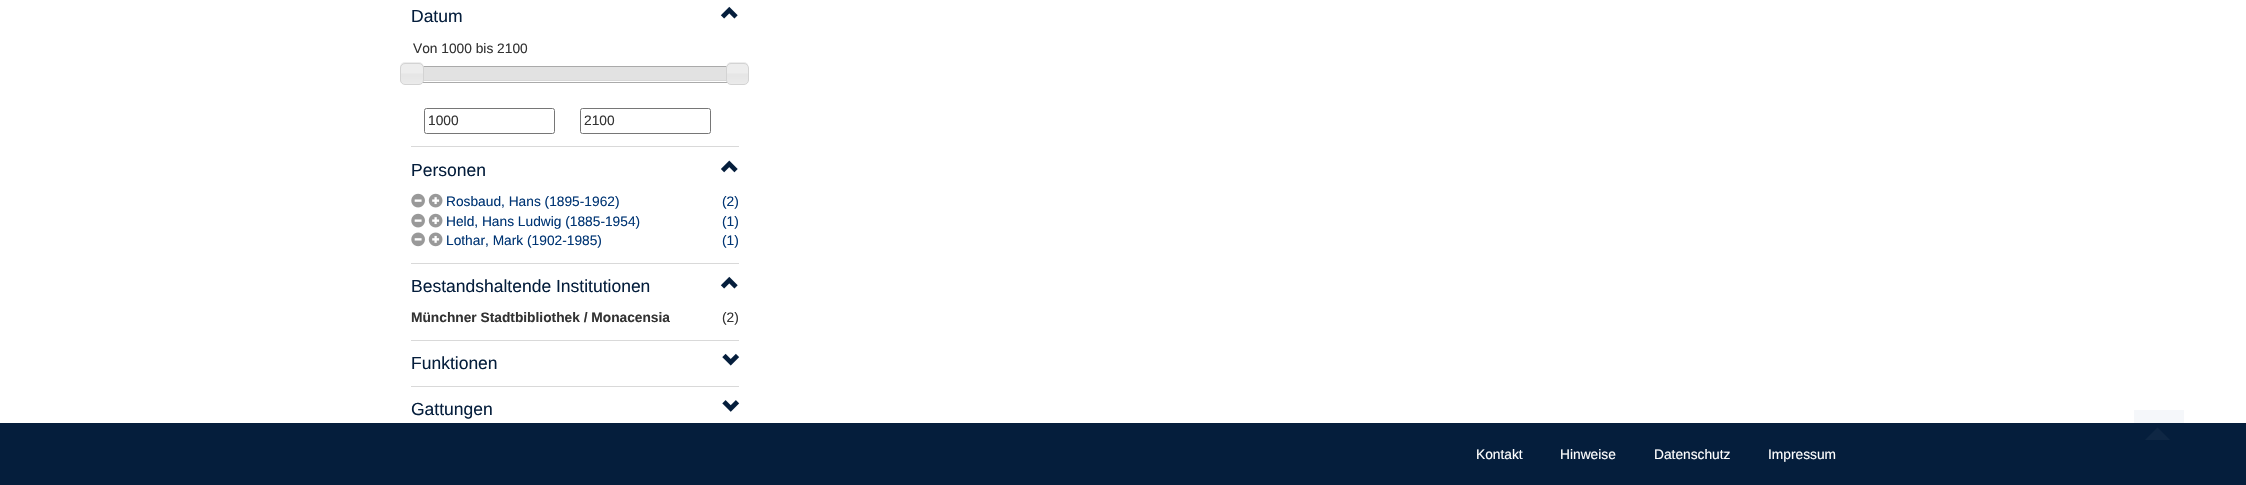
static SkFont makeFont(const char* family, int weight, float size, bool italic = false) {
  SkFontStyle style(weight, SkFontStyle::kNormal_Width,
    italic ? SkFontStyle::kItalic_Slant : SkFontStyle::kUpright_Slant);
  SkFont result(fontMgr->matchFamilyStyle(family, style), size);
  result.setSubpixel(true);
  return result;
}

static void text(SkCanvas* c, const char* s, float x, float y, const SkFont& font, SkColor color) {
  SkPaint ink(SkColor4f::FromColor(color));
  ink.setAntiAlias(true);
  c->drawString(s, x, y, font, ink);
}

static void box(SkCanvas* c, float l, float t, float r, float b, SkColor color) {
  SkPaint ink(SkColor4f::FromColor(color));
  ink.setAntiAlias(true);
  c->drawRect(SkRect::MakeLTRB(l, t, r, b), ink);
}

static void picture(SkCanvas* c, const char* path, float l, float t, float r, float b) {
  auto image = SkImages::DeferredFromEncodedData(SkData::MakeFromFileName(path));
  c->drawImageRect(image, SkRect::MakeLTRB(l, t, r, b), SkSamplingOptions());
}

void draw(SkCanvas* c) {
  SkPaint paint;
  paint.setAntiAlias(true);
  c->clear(0xffffffff);
  SkFont face1 = makeFont("Liberation Sans", 400, 17.5f);
  text(c, "Datum", 411, 22, face1, 0xff051e3c);
  picture(c, "img_01.png", 720, 6, 738, 19);
  SkFont face2 = makeFont("Liberation Sans", 400, 13.75f);
  text(c, "Von 1000 bis 2100", 413, 53, face2, 0xff333333);
  paint.setStyle(SkPaint::kStroke_Style);
  paint.setStrokeWidth(1);
  paint.setColor(0xffaaaaaa);
  c->drawRect(SkRect::MakeLTRB(411.5f, 66.5f, 738.5f, 82.5f), paint);
  box(c, 423, 80, 727, 81, 0xffcccccc);
  picture(c, "img_03.png", 423, 67, 727, 81);
  picture(c, "img_02.png", 400, 62, 424, 84);
  paint.setColor(0xffd3d3d3);
  c->drawRoundRect(SkRect::MakeLTRB(400.5f, 63.5f, 423.5f, 84.5f), 4.5f, 4.5f, paint);
  picture(c, "img_04.png", 726, 62, 748, 84);
  c->drawRoundRect(SkRect::MakeLTRB(726.5f, 63.5f, 748.5f, 84.5f), 4.5f, 4.5f, paint);
  paint.setColor(0xff767676);
  c->drawRoundRect(SkRect::MakeLTRB(424.5f, 108.5f, 554.5f, 133.5f), 2, 2, paint);
  text(c, "1000", 428, 125, face2, 0xff333333);
  c->drawRoundRect(SkRect::MakeLTRB(580.5f, 108.5f, 710.5f, 133.5f), 2, 2, paint);
  text(c, "2100", 584, 125, face2, 0xff333333);
  box(c, 411, 146, 739, 147, 0xffd9d9d9);
  text(c, "Personen", 411, 176, face1, 0xff051e3c);
  picture(c, "img_05.png", 721, 160, 738, 173);
  picture(c, "img_06.png", 411, 193, 425, 208);
  picture(c, "img_07.png", 428, 193, 443, 208);
  text(c, "Rosbaud, Hans (1895-1962)", 446, 206, face2, 0xff003574);
  text(c, "(2)", 722, 206, face2, 0xff003574);
  picture(c, "img_06.png", 411, 213, 425, 228);
  picture(c, "img_07.png", 428, 213, 443, 228);
  text(c, "Held, Hans Ludwig (1885-1954)", 446, 226, face2, 0xff003574);
  text(c, "(1)", 722, 226, face2, 0xff003574);
  picture(c, "img_08.png", 411, 232, 425, 247);
  picture(c, "img_09.png", 428, 232, 443, 247);
  text(c, "Lothar, Mark (1902-1985)", 446, 245, face2, 0xff003574);
  text(c, "(1)", 722, 245, face2, 0xff003574);
  box(c, 411, 263, 739, 264, 0xffd9d9d9);
  text(c, "Bestandshaltende Institutionen", 411, 292, face1, 0xff051e3c);
  picture(c, "img_01.png", 720, 276, 738, 289);
  SkFont face3 = makeFont("Liberation Sans", 700, 13.75f);
  text(c, "Münchner Stadtbibliothek / Monacensia", 411, 322, face3, 0xff333333);
  text(c, "(2)", 722, 322, face2, 0xff333333);
  box(c, 411, 340, 739, 341, 0xffd9d9d9);
  text(c, "Funktionen", 411, 369, face1, 0xff051e3c);
  picture(c, "img_10.png", 722, 353, 740, 366);
  box(c, 411, 386, 739, 387, 0xffd9d9d9);
  text(c, "Gattungen", 411, 415, face1, 0xff051e3c);
  picture(c, "img_11.png", 722, 400, 740, 412);
  box(c, 0, 423, 2246, 485, 0xff051e3c);
  text(c, "Kontakt", 1476, 459, face2, 0xffffffff);
  text(c, "Hinweise", 1560, 459, face2, 0xffffffff);
  text(c, "Datenschutz", 1654, 459, face2, 0xffffffff);
  text(c, "Impressum", 1768, 459, face2, 0xffffffff);
  box(c, 2134, 410, 2184, 423, 0x0a003574);
  paint.setStyle(SkPaint::kFill_Style);
  paint.setColor(0xff0f2744);
  c->drawPath(SkPathBuilder().moveTo(2170, 440).lineTo(2145, 440).lineTo(2157.5f, 427.5f).close().detach(), paint);
}
